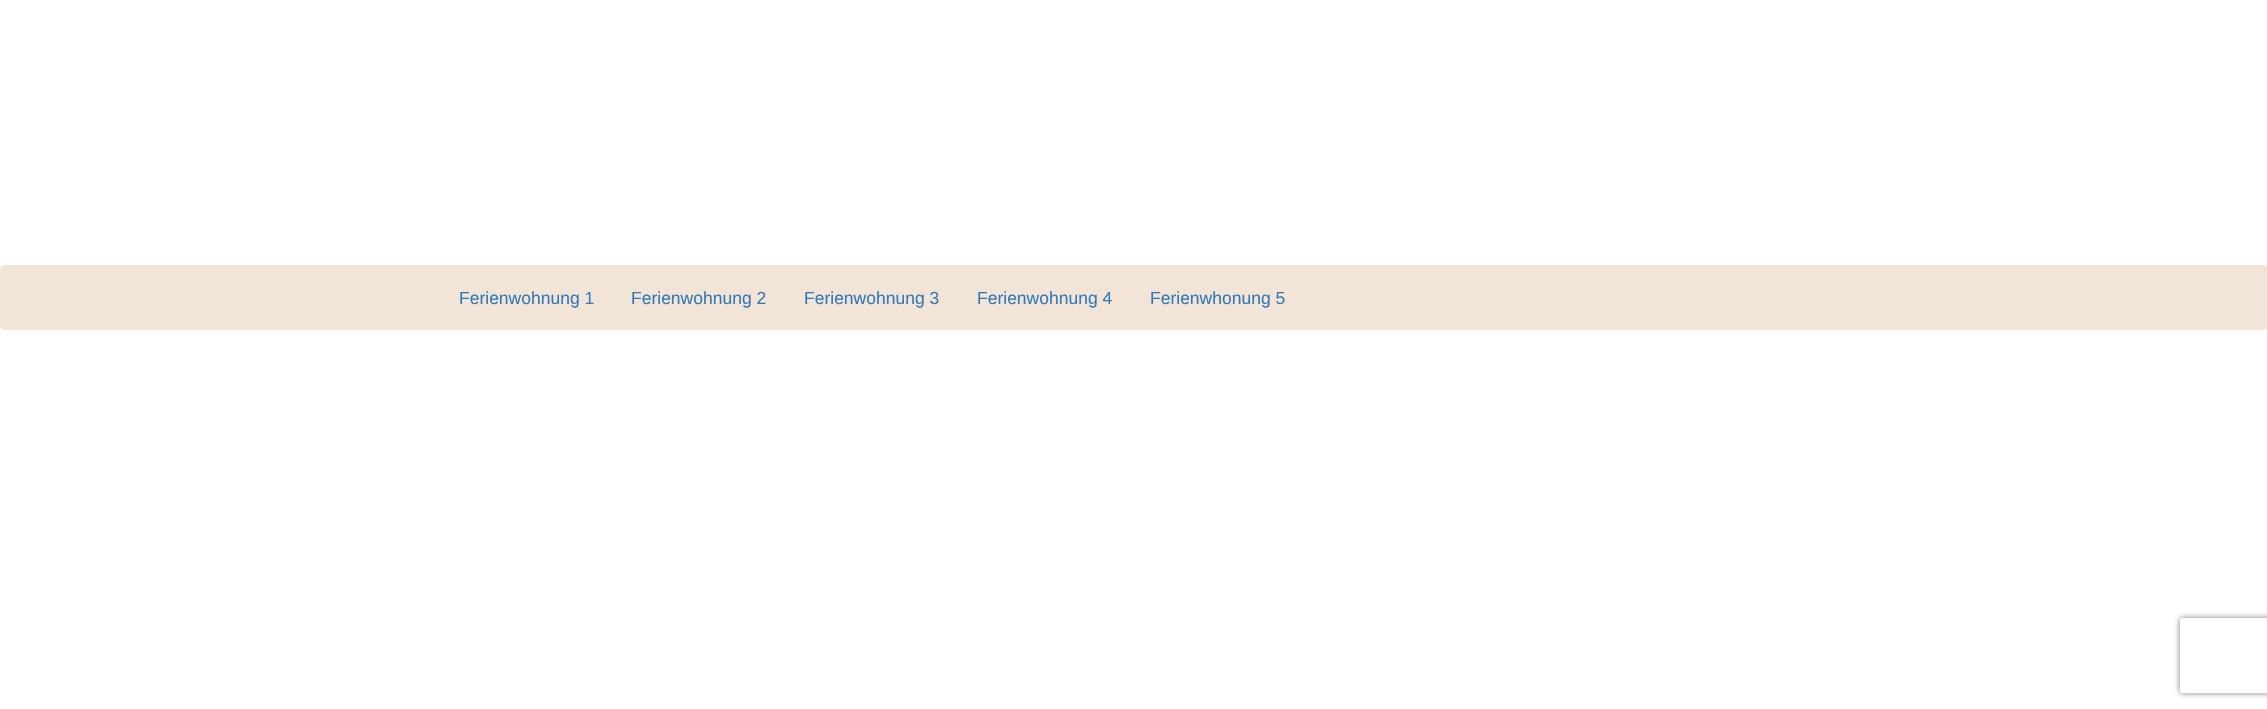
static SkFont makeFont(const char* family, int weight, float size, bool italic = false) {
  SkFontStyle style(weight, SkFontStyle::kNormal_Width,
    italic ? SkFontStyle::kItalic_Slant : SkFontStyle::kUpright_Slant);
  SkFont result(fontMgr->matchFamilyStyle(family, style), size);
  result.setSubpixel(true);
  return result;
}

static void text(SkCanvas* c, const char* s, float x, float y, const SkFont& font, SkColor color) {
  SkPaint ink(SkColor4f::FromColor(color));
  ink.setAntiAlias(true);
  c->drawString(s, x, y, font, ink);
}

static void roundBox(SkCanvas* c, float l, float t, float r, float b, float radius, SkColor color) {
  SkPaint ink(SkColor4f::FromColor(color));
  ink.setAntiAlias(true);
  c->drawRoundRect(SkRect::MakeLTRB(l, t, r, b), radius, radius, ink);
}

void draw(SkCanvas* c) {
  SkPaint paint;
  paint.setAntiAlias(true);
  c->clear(0xffffffff);
  roundBox(c, 0, 265, 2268, 330, 5, 0xfff2e5d7);
  SkFont face1 = makeFont("Liberation Sans", 400, 17.5f);
  text(c, "Ferienwohnung 1", 459, 304, face1, 0xff337ab7);
  text(c, "Ferienwohnung 2", 631, 304, face1, 0xff337ab7);
  text(c, "Ferienwohnung 3", 804, 304, face1, 0xff337ab7);
  text(c, "Ferienwohnung 4", 977, 304, face1, 0xff337ab7);
  text(c, "Ferienwhonung 5", 1150, 304, face1, 0xff337ab7);
  c->save();
  c->clipPath(SkPathBuilder(SkPathFillType::kEvenOdd).moveTo(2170, 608).lineTo(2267, 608).lineTo(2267, 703).lineTo(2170, 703).close().moveTo(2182.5f, 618).lineTo(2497.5f, 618).cubicTo(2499, 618, 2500, 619, 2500, 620.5f).lineTo(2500, 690.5f).cubicTo(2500, 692, 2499, 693, 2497.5f, 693).lineTo(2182.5f, 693).cubicTo(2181, 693, 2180, 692, 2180, 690.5f).lineTo(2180, 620.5f).cubicTo(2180, 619, 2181, 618, 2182.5f, 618).close().detach(), true);
  paint.setColor(0xff808080);
  paint.setMaskFilter(SkMaskFilter::MakeBlur(kNormal_SkBlurStyle, 3));
  c->drawRoundRect(SkRect::MakeLTRB(2180, 618, 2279, 693), 2.5f, 2.5f, paint);
  paint.setMaskFilter(nullptr);
  c->restore();
}
